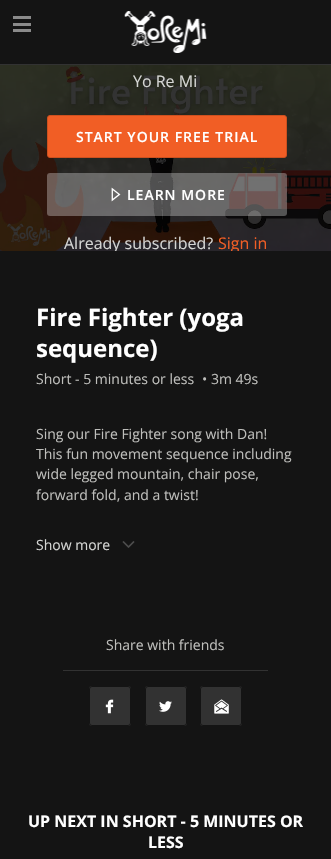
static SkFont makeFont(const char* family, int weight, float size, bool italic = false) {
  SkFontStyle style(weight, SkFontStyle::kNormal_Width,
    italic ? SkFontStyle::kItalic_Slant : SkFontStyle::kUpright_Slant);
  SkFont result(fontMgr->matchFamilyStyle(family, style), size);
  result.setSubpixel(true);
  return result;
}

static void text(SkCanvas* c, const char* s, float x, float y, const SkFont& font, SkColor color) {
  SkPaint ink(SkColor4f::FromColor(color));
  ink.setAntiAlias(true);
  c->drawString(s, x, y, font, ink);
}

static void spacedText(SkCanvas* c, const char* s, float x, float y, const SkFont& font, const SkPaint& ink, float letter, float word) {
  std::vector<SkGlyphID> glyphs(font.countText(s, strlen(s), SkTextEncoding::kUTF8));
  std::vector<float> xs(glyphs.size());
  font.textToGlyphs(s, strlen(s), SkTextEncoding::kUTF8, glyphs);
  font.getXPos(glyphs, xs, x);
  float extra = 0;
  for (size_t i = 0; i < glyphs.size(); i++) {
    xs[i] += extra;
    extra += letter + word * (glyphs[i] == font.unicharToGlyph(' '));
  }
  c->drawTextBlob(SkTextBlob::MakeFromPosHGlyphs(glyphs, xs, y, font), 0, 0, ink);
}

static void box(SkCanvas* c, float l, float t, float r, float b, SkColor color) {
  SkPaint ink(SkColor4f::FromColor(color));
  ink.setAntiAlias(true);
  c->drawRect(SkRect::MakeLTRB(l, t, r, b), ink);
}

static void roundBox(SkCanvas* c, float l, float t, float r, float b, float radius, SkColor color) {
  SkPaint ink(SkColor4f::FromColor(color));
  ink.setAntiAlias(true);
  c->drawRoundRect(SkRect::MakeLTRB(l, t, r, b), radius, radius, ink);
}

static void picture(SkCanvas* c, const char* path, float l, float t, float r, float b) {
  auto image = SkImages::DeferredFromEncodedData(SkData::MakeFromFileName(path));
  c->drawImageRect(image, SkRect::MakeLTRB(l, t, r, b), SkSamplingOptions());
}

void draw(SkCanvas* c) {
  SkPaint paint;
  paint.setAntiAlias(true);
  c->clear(0xff141414);
  box(c, 0, 64, 331, 65, 0xff323232);
  box(c, 13, 16, 31, 19, 0xff8a8a8a);
  box(c, 13, 23, 31, 26, 0xff8a8a8a);
  box(c, 13, 29, 31, 32, 0xff8a8a8a);
  picture(c, "img_01.png", 124, 11, 207, 53);
  picture(c, "img_02.png", 0, 65, 331, 251);
  SkFont face1 = makeFont("Open Sans", 400, 16);
  text(c, "Yo Re Mi", 133, 87, face1, 0xffd4d5d3);
  paint.setColor(0xfff15e25);
  c->drawRoundRect(SkRect::MakeLTRB(47.5f, 115.5f, 286.5f, 157.5f), 2.5f, 2.5f, paint);
  paint.setStyle(SkPaint::kStroke_Style);
  paint.setStrokeWidth(1);
  paint.setColor(0xffcd501f);
  c->drawRoundRect(SkRect::MakeLTRB(47.5f, 115.5f, 286.5f, 157.5f), 2.5f, 2.5f, paint);
  SkFont face2 = makeFont("Open Sans", 600, 14);
  paint.setStyle(SkPaint::kFill_Style);
  paint.setColor(0xffffffff);
  spacedText(c, "START YOUR FREE TRIAL", 76, 142, face2, paint, 1, 0);
  roundBox(c, 47, 173, 287, 216, 3, 0x4dffffff);
  picture(c, "img_03.png", 111, 187, 121, 202);
  spacedText(c, "LEARN MORE", 127, 200, face2, paint, 1, 0);
  c->save();
  c->clipRect(SkRect::MakeLTRB(0, 65, 331, 251));
  text(c, "Already subscribed?", 64, 249, face1, 0xffd4d5d3);
  text(c, "Sign in", 218, 249, face1, 0xfff15e25);
  c->restore();
  SkFont face3 = makeFont("Open Sans", 700, 24);
  text(c, "Fire Fighter (yoga", 36, 326, face3, 0xffffffff);
  text(c, "sequence)", 36, 357, face3, 0xffffffff);
  SkFont face4 = makeFont("Open Sans", 400, 14);
  text(c, "Short - 5 minutes or less", 36, 384, face4, 0xffbebebb);
  text(c, "• 3m 49s", 202, 384, face4, 0xffbebebb);
  text(c, "Sing our Fire Fighter song with Dan!", 36, 439, face4, 0xffbebebb);
  text(c, "This fun movement sequence including", 36, 459, face4, 0xffbebebb);
  text(c, "wide legged mountain, chair pose,", 36, 479, face4, 0xffbebebb);
  text(c, "forward fold, and a twist!", 36, 500, face4, 0xffbebebb);
  text(c, "Show more", 36, 550, face4, 0xffd4d5d3);
  picture(c, "img_04.png", 122, 541, 135, 548);
  box(c, 63, 670, 268, 671, 0xff323232);
  text(c, "Share with friends", 106, 650, face4, 0xffbebebb);
  roundBox(c, 89, 686, 131, 726, 3, 0xff323232);
  picture(c, "img_05.png", 105, 699, 114, 714);
  paint.setStyle(SkPaint::kStroke_Style);
  paint.setColor(0xff141414);
  c->drawRoundRect(SkRect::MakeLTRB(89.5f, 686.5f, 130.5f, 725.5f), 2.5f, 2.5f, paint);
  roundBox(c, 145, 686, 187, 726, 3, 0xff323232);
  picture(c, "img_06.png", 159, 701, 172, 712);
  c->drawRoundRect(SkRect::MakeLTRB(145.5f, 686.5f, 186.5f, 725.5f), 2.5f, 2.5f, paint);
  roundBox(c, 200, 686, 242, 726, 3, 0xff323232);
  picture(c, "img_07.png", 214, 699, 229, 714);
  c->drawRoundRect(SkRect::MakeLTRB(200.5f, 686.5f, 241.5f, 725.5f), 2.5f, 2.5f, paint);
  SkFont face5 = makeFont("Open Sans", 700, 16);
  text(c, "UP NEXT IN SHORT - 5 MINUTES OR", 28, 827, face5, 0xffffffff);
  text(c, "LESS", 148, 848, face5, 0xffffffff);
}
